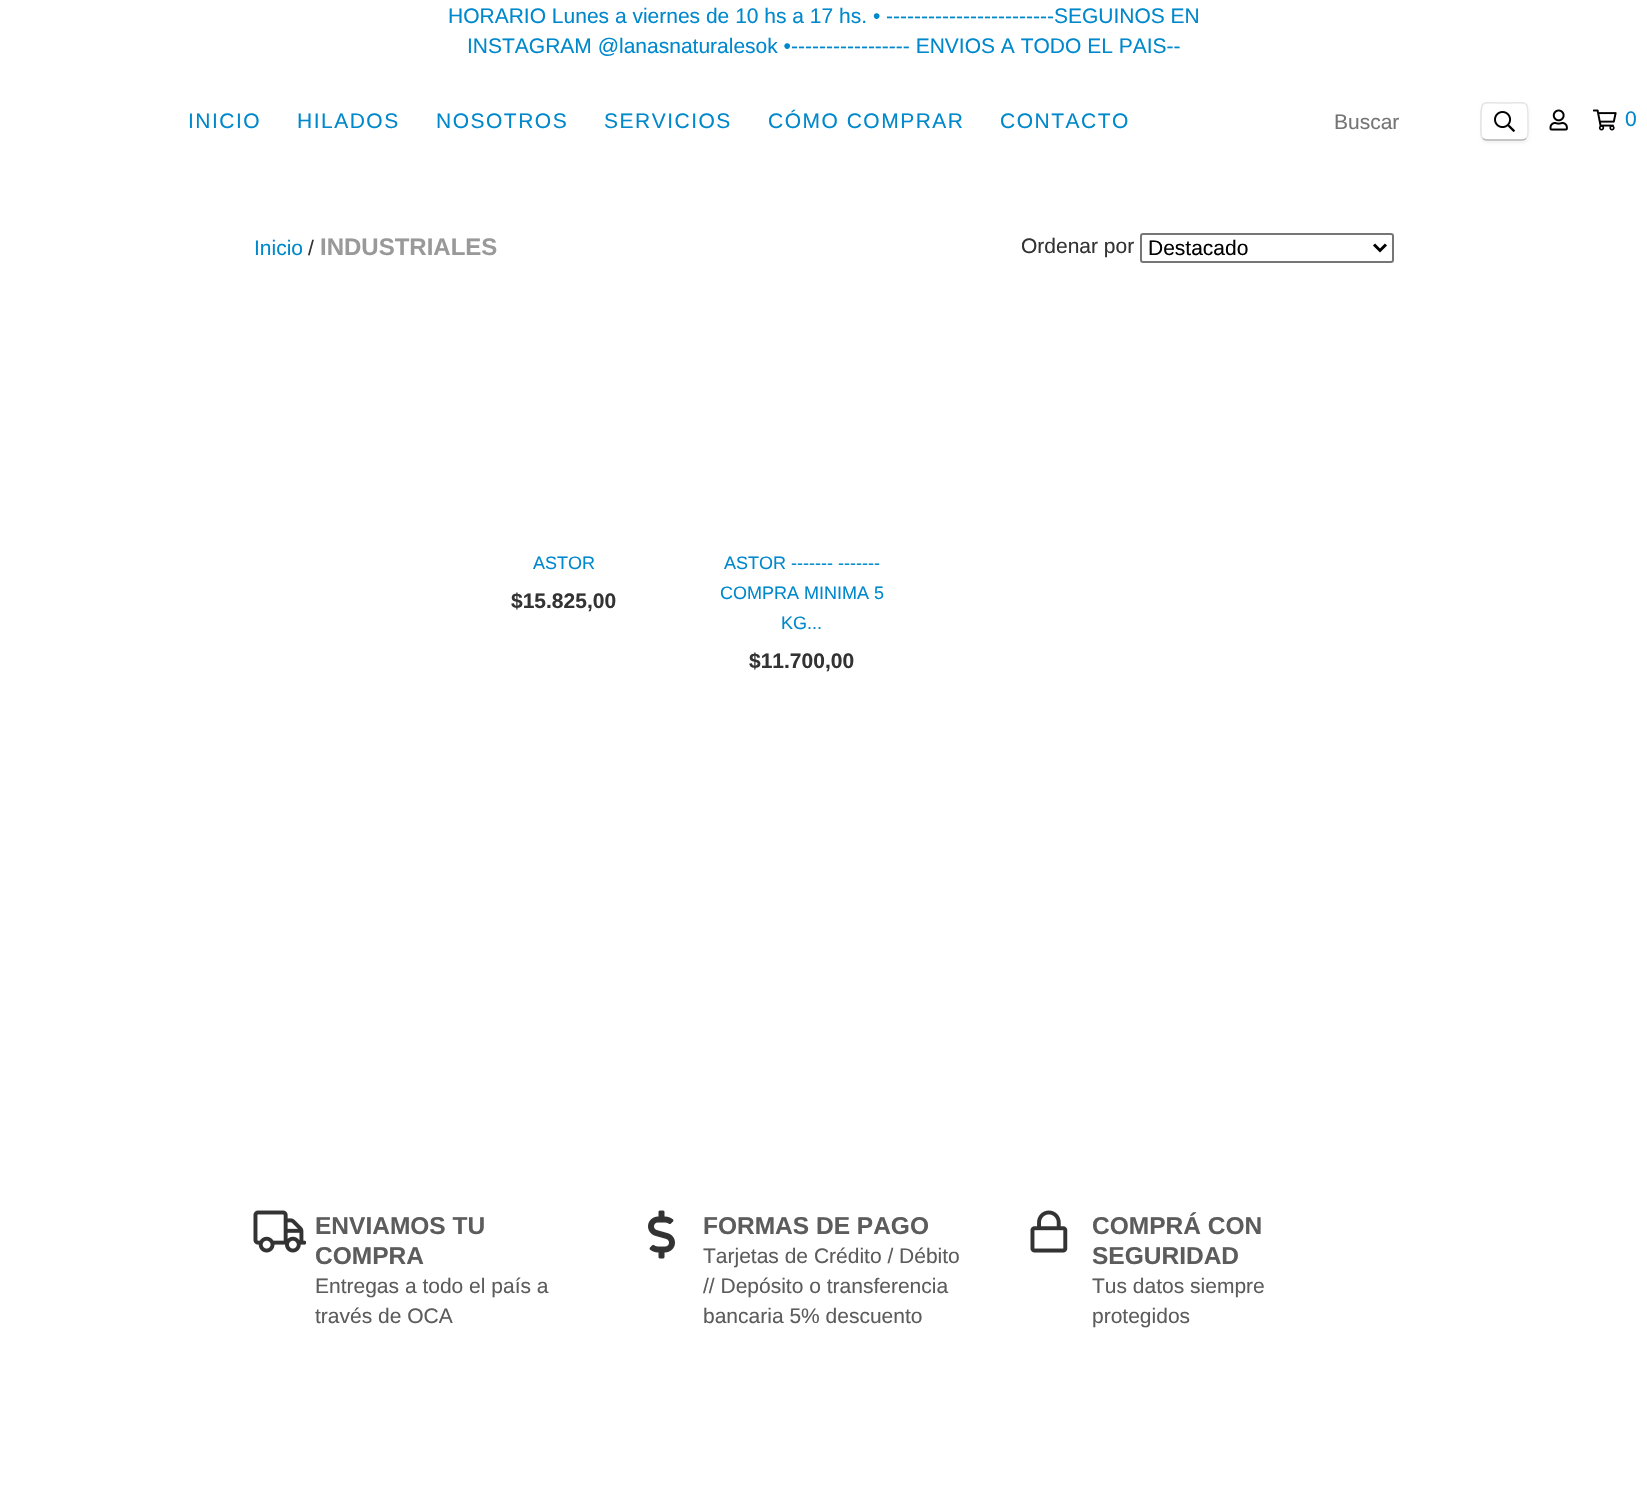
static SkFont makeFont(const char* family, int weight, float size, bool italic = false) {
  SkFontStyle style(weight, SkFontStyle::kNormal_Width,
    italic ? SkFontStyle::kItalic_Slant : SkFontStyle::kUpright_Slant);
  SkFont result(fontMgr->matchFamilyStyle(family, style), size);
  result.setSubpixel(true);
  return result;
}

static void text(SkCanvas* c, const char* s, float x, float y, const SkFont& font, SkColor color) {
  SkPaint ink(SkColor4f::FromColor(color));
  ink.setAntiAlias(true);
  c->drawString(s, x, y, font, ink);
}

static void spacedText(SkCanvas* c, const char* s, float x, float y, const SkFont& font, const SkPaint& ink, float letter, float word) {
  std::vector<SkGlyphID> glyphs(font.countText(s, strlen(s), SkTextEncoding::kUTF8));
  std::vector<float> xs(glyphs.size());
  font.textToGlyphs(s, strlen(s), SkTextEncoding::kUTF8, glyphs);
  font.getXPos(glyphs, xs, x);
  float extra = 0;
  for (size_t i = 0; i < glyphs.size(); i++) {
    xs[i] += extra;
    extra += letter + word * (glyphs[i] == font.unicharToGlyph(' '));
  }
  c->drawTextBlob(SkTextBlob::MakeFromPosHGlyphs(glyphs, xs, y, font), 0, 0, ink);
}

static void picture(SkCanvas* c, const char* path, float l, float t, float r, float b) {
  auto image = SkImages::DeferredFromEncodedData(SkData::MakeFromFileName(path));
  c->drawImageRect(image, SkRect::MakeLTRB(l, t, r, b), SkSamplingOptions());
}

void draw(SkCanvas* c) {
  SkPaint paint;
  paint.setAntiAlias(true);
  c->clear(0xffffffff);
  SkFont face1 = makeFont("Liberation Sans", 400, 21);
  text(c, "HORARIO Lunes a viernes de 10 hs a 17 hs. • ------------------------SEGUINOS EN", 448, 23, face1, 0xff0088cc);
  text(c, "INSTAGRAM @lanasnaturalesok •----------------- ENVIOS A TODO EL PAIS--", 467, 53, face1, 0xff0088cc);
  paint.setColor(0xff0088cc);
  spacedText(c, "INICIO", 188, 128, face1, paint, 1.5f, 0);
  spacedText(c, "HILADOS", 297, 128, face1, paint, 1.5f, 0);
  spacedText(c, "NOSOTROS", 436, 128, face1, paint, 1.5f, 0);
  spacedText(c, "SERVICIOS", 604, 128, face1, paint, 1.5f, 0);
  spacedText(c, "CÓMO COMPRAR", 768, 128, face1, paint, 1.5f, 0);
  spacedText(c, "CONTACTO", 1000, 128, face1, paint, 1.5f, 0);
  text(c, "Buscar", 1334, 129, face1, 0xff757575);
  c->save();
  c->clipPath(SkPathBuilder(SkPathFillType::kEvenOdd).moveTo(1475, 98).lineTo(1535, 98).lineTo(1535, 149).lineTo(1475, 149).close().moveTo(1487, 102).lineTo(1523, 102).cubicTo(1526.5f, 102, 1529, 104.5f, 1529, 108).lineTo(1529, 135).cubicTo(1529, 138.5f, 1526.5f, 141, 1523, 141).lineTo(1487, 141).cubicTo(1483.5f, 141, 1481, 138.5f, 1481, 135).lineTo(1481, 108).cubicTo(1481, 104.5f, 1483.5f, 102, 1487, 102).close().detach(), true);
  paint.setColor(0x0d000000);
  paint.setMaskFilter(SkMaskFilter::MakeBlur(kNormal_SkBlurStyle, 1.5f));
  c->drawRoundRect(SkRect::MakeLTRB(1481, 104, 1529, 143), 6, 6, paint);
  paint.setMaskFilter(nullptr);
  c->restore();
  paint.setStyle(SkPaint::kStroke_Style);
  paint.setStrokeWidth(1.5f);
  paint.setColor(0xffb3b3b3);
  c->drawPath(SkPathBuilder().moveTo(1526, 138.5f).cubicTo(1525, 139.5f, 1524, 140, 1522.5f, 140).lineTo(1486.5f, 140).cubicTo(1485, 140, 1484, 139.5f, 1483, 138.5f).detach(), paint);
  paint.setColor(0x1a000000);
  c->drawPath(SkPathBuilder().moveTo(1483, 138.5f).cubicTo(1480.5f, 136.5f, 1481, 133, 1481, 130.5f).lineTo(1481, 121.5f).cubicTo(1481, 98.5f, 1480, 103, 1504.5f, 103).cubicTo(1529, 103, 1528, 98.5f, 1528, 121.5f).lineTo(1528, 130.5f).cubicTo(1528, 133, 1528.5f, 136.5f, 1526, 138.5f).detach(), paint);
  picture(c, "img_01.png", 1494, 111, 1515, 132);
  picture(c, "img_02.png", 1549, 109, 1568, 131);
  picture(c, "img_03.png", 1593, 109, 1617, 131);
  paint.setStyle(SkPaint::kFill_Style);
  paint.setColor(0xff0088cc);
  spacedText(c, "0", 1625, 126, face1, paint, 1.5f, 0);
  text(c, "Inicio", 254, 255, face1, 0xff0088cc);
  text(c, "/", 308, 255, face1, 0xff333333);
  SkFont face2 = makeFont("Liberation Sans", 700, 24);
  text(c, "INDUSTRIALES", 320, 255, face2, 0xff999999);
  text(c, "Ordenar por", 1021, 253, face1, 0xff333333);
  paint.setStyle(SkPaint::kStroke_Style);
  paint.setStrokeWidth(2);
  paint.setColor(0xff767676);
  c->drawRoundRect(SkRect::MakeLTRB(1141, 234, 1393, 262), 2, 2, paint);
  paint.setStrokeWidth(3);
  paint.setColor(0xff000000);
  c->drawPath(SkPathBuilder().moveTo(1374, 244.5f).lineTo(1380, 250.5f).lineTo(1386, 244.5f).detach(), paint);
  text(c, "Destacado", 1148, 255, face1, 0xff000000);
  SkFont face3 = makeFont("Liberation Sans", 400, 18);
  text(c, "ASTOR", 533, 569, face3, 0xff0088cc);
  SkFont face4 = makeFont("Liberation Sans", 700, 21);
  text(c, "$15.825,00", 511, 608, face4, 0xff333333);
  text(c, "ASTOR ------- -------", 724, 569, face3, 0xff0088cc);
  text(c, "COMPRA MINIMA 5", 720, 599, face3, 0xff0088cc);
  text(c, "KG...", 781, 629, face3, 0xff0088cc);
  text(c, "$11.700,00", 749, 668, face4, 0xff333333);
  picture(c, "img_04.png", 253, 1210, 306, 1253);
  SkFont face5 = makeFont("Liberation Sans", 700, 24.5f);
  text(c, "ENVIAMOS TU", 315, 1234, face5, 0xff5c5c5c);
  text(c, "COMPRA", 315, 1264, face5, 0xff5c5c5c);
  text(c, "Entregas a todo el país a", 315, 1293, face1, 0xff5c5c5c);
  text(c, "través de OCA", 315, 1323, face1, 0xff5c5c5c);
  picture(c, "img_05.png", 648, 1210, 675, 1259);
  text(c, "FORMAS DE PAGO", 703, 1234, face5, 0xff5c5c5c);
  text(c, "Tarjetas de Crédito / Débito", 703, 1263, face1, 0xff5c5c5c);
  text(c, "// Depósito o transferencia", 703, 1293, face1, 0xff5c5c5c);
  text(c, "bancaria 5% descuento", 703, 1323, face1, 0xff5c5c5c);
  picture(c, "img_06.png", 1030, 1210, 1068, 1253);
  text(c, "COMPRÁ CON", 1092, 1234, face5, 0xff5c5c5c);
  text(c, "SEGURIDAD", 1092, 1264, face5, 0xff5c5c5c);
  text(c, "Tus datos siempre", 1092, 1293, face1, 0xff5c5c5c);
  text(c, "protegidos", 1092, 1323, face1, 0xff5c5c5c);
}
